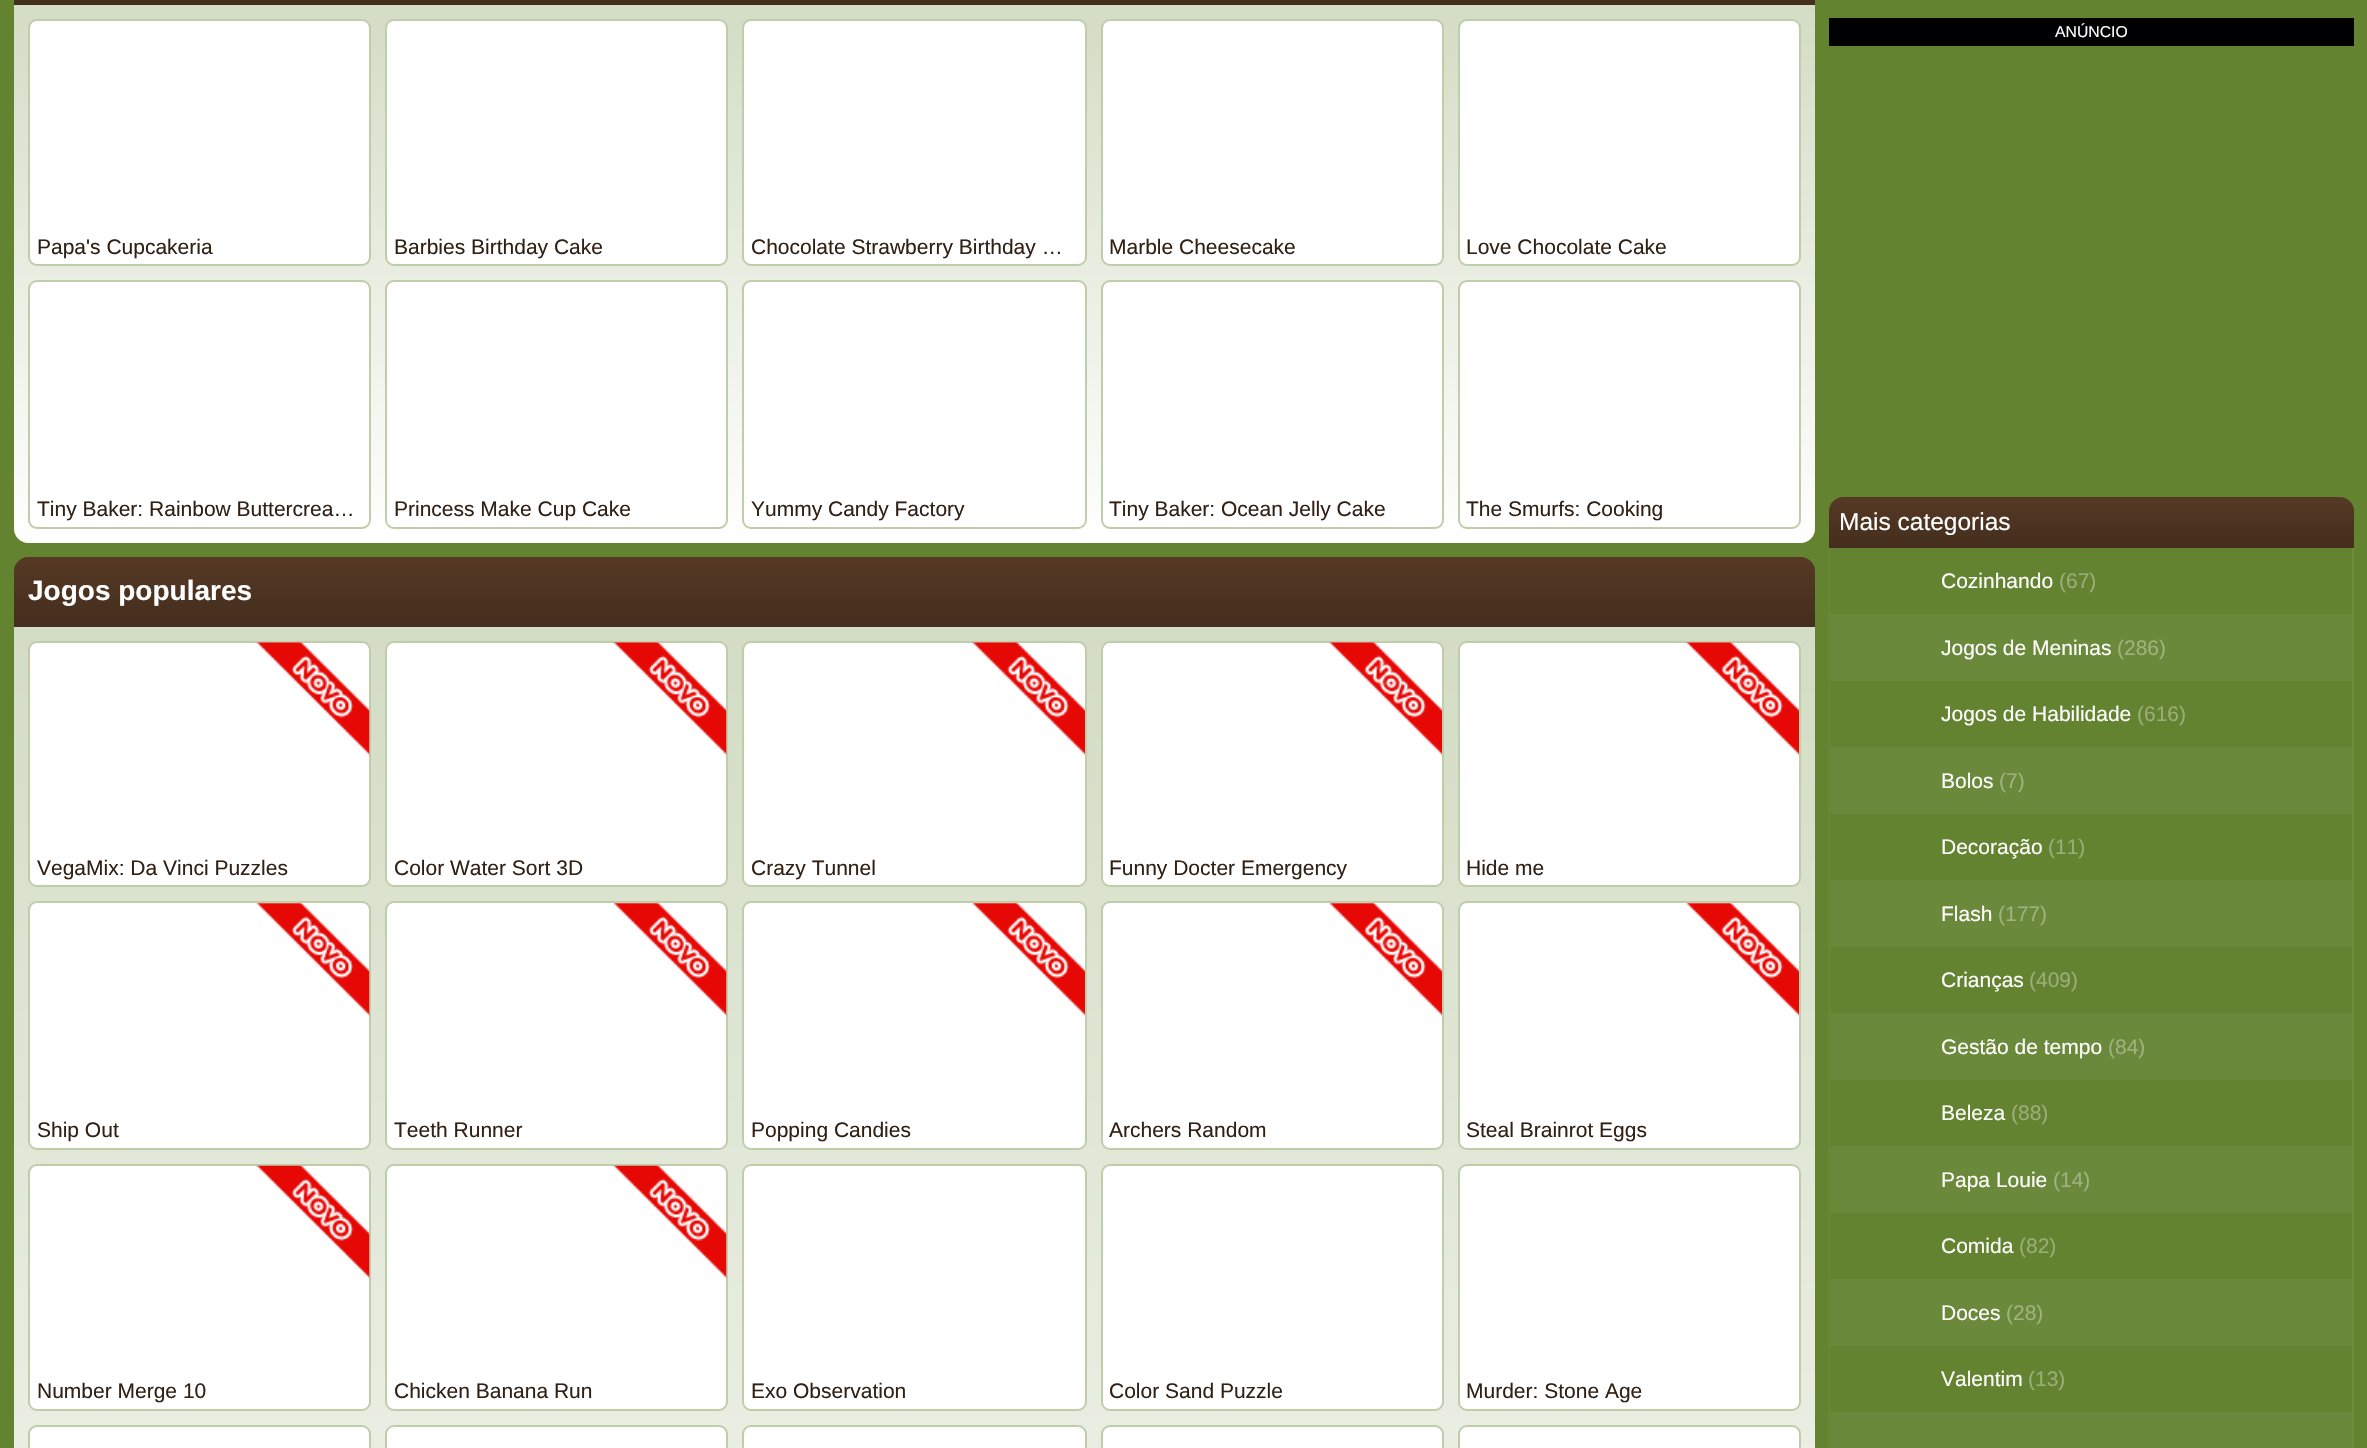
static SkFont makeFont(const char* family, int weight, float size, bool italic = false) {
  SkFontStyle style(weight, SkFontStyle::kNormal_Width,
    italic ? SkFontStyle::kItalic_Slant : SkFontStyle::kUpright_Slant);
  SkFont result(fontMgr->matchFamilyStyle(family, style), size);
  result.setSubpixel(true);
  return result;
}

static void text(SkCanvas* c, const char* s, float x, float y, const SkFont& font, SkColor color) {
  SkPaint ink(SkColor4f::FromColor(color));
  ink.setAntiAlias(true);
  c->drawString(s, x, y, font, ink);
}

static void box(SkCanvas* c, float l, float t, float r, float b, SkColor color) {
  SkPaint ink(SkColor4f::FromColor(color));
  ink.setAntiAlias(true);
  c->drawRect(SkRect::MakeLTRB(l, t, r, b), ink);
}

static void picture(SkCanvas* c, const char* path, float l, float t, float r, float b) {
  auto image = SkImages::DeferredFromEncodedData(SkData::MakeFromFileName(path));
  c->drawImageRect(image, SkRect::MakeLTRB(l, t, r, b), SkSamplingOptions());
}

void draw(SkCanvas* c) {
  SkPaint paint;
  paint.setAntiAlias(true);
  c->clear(0xff638331);
  {
    const SkColor colors[] = {0xff553924, 0xff442e1d};
    const float stops[] = {0, 1};
    const SkPoint ends[] = {{914, -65}, {914, 5.3f}};
    paint.setShader(SkGradientShader::MakeLinear(ends, colors, stops, 2, SkTileMode::kClamp));
    paint.setAlpha(255);
  }
  c->drawRect(SkRect::MakeLTRB(14, 0, 1815, 5), paint);
  {
    const SkColor colors[] = {0xffd3dcc4, 0xffffffff};
    const float stops[] = {0, 1};
    const SkPoint ends[] = {{914, 5.2f}, {914, 543}};
    paint.setShader(SkGradientShader::MakeLinear(ends, colors, stops, 2, SkTileMode::kClamp));
    paint.setAlpha(255);
  }
  c->drawPath(SkPathBuilder().moveTo(14, 5).lineTo(1815, 5).lineTo(1815, 529).cubicTo(1815, 536.5f, 1808.5f, 543, 1801, 543).lineTo(28, 543).cubicTo(20.5f, 543, 14, 536.5f, 14, 529).close().detach(), paint);
  paint.setShader(nullptr);
  paint.setColor(0xffffffff);
  c->drawRoundRect(SkRect::MakeLTRB(29, 20, 370, 265), 8, 8, paint);
  paint.setStyle(SkPaint::kStroke_Style);
  paint.setStrokeWidth(2);
  paint.setColor(0xffc0cdaa);
  c->drawRoundRect(SkRect::MakeLTRB(29, 20, 370, 265), 8, 8, paint);
  SkFont face1 = makeFont("Liberation Sans", 400, 21);
  text(c, "Papa's Cupcakeria", 37, 254, face1, 0xff312115);
  paint.setStyle(SkPaint::kFill_Style);
  paint.setColor(0xffffffff);
  c->drawRoundRect(SkRect::MakeLTRB(386, 20, 727, 265), 8, 8, paint);
  paint.setStyle(SkPaint::kStroke_Style);
  paint.setColor(0xffc0cdaa);
  c->drawRoundRect(SkRect::MakeLTRB(386, 20, 727, 265), 8, 8, paint);
  text(c, "Barbies Birthday Cake", 394, 254, face1, 0xff312115);
  paint.setStyle(SkPaint::kFill_Style);
  paint.setColor(0xffffffff);
  c->drawRoundRect(SkRect::MakeLTRB(743, 20, 1086, 265), 8, 8, paint);
  paint.setStyle(SkPaint::kStroke_Style);
  paint.setColor(0xffc0cdaa);
  c->drawRoundRect(SkRect::MakeLTRB(743, 20, 1086, 265), 8, 8, paint);
  text(c, "Chocolate Strawberry Birthday …", 751, 254, face1, 0xff312115);
  paint.setStyle(SkPaint::kFill_Style);
  paint.setColor(0xffffffff);
  c->drawRoundRect(SkRect::MakeLTRB(1102, 20, 1443, 265), 8, 8, paint);
  paint.setStyle(SkPaint::kStroke_Style);
  paint.setColor(0xffc0cdaa);
  c->drawRoundRect(SkRect::MakeLTRB(1102, 20, 1443, 265), 8, 8, paint);
  text(c, "Marble Cheesecake", 1109, 254, face1, 0xff312115);
  paint.setStyle(SkPaint::kFill_Style);
  paint.setColor(0xffffffff);
  c->drawRoundRect(SkRect::MakeLTRB(1459, 20, 1800, 265), 8, 8, paint);
  paint.setStyle(SkPaint::kStroke_Style);
  paint.setColor(0xffc0cdaa);
  c->drawRoundRect(SkRect::MakeLTRB(1459, 20, 1800, 265), 8, 8, paint);
  text(c, "Love Chocolate Cake", 1466, 254, face1, 0xff312115);
  paint.setStyle(SkPaint::kFill_Style);
  paint.setColor(0xffffffff);
  c->drawRoundRect(SkRect::MakeLTRB(29, 281, 370, 528), 8, 8, paint);
  paint.setStyle(SkPaint::kStroke_Style);
  paint.setColor(0xffc0cdaa);
  c->drawRoundRect(SkRect::MakeLTRB(29, 281, 370, 528), 8, 8, paint);
  text(c, "Tiny Baker: Rainbow Buttercrea…", 37, 516, face1, 0xff312115);
  paint.setStyle(SkPaint::kFill_Style);
  paint.setColor(0xffffffff);
  c->drawRoundRect(SkRect::MakeLTRB(386, 281, 727, 528), 8, 8, paint);
  paint.setStyle(SkPaint::kStroke_Style);
  paint.setColor(0xffc0cdaa);
  c->drawRoundRect(SkRect::MakeLTRB(386, 281, 727, 528), 8, 8, paint);
  text(c, "Princess Make Cup Cake", 394, 516, face1, 0xff312115);
  paint.setStyle(SkPaint::kFill_Style);
  paint.setColor(0xffffffff);
  c->drawRoundRect(SkRect::MakeLTRB(743, 281, 1086, 528), 8, 8, paint);
  paint.setStyle(SkPaint::kStroke_Style);
  paint.setColor(0xffc0cdaa);
  c->drawRoundRect(SkRect::MakeLTRB(743, 281, 1086, 528), 8, 8, paint);
  text(c, "Yummy Candy Factory", 751, 516, face1, 0xff312115);
  paint.setStyle(SkPaint::kFill_Style);
  paint.setColor(0xffffffff);
  c->drawRoundRect(SkRect::MakeLTRB(1102, 281, 1443, 528), 8, 8, paint);
  paint.setStyle(SkPaint::kStroke_Style);
  paint.setColor(0xffc0cdaa);
  c->drawRoundRect(SkRect::MakeLTRB(1102, 281, 1443, 528), 8, 8, paint);
  text(c, "Tiny Baker: Ocean Jelly Cake", 1109, 516, face1, 0xff312115);
  paint.setStyle(SkPaint::kFill_Style);
  paint.setColor(0xffffffff);
  c->drawRoundRect(SkRect::MakeLTRB(1459, 281, 1800, 528), 8, 8, paint);
  paint.setStyle(SkPaint::kStroke_Style);
  paint.setColor(0xffc0cdaa);
  c->drawRoundRect(SkRect::MakeLTRB(1459, 281, 1800, 528), 8, 8, paint);
  text(c, "The Smurfs: Cooking", 1466, 516, face1, 0xff312115);
  paint.setStyle(SkPaint::kFill_Style);
  paint.setColor(0xff553924);
  c->drawPath(SkPathBuilder().moveTo(28, 557).lineTo(1801, 557).cubicTo(1808.5f, 557, 1815, 563.5f, 1815, 571).lineTo(1815, 627).lineTo(14, 627).lineTo(14, 571).cubicTo(14, 563.5f, 20.5f, 557, 28, 557).close().detach(), paint);
  {
    const SkColor colors[] = {0x00000000, 0x33000000};
    const float stops[] = {0, 1};
    const SkPoint ends[] = {{914, 556}, {914, 627}};
    paint.setShader(SkGradientShader::MakeLinear(ends, colors, stops, 2, SkTileMode::kClamp));
    paint.setAlpha(255);
  }
  c->drawRect(SkRect::MakeLTRB(14, 564, 1815, 627), paint);
  SkFont face2 = makeFont("Liberation Sans", 700, 28);
  text(c, "Jogos populares", 28, 600, face2, 0xffffffff);
  {
    const SkColor colors[] = {0xffd3dcc4, 0xffffffff};
    const float stops[] = {0, 1};
    const SkPoint ends[] = {{914, 626}, {914, 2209}};
    paint.setShader(SkGradientShader::MakeLinear(ends, colors, stops, 2, SkTileMode::kClamp));
    paint.setAlpha(255);
  }
  c->drawRect(SkRect::MakeLTRB(14, 627, 1815, 1448), paint);
  paint.setShader(nullptr);
  paint.setColor(0xffffffff);
  c->drawRoundRect(SkRect::MakeLTRB(29, 642, 370, 886), 8, 8, paint);
  paint.setStyle(SkPaint::kStroke_Style);
  paint.setColor(0xffc0cdaa);
  c->drawRoundRect(SkRect::MakeLTRB(29, 642, 370, 886), 8, 8, paint);
  picture(c, "img_01.png", 255, 642, 370, 756);
  text(c, "VegaMix: Da Vinci Puzzles", 37, 875, face1, 0xff312115);
  paint.setStyle(SkPaint::kFill_Style);
  paint.setColor(0xffffffff);
  c->drawRoundRect(SkRect::MakeLTRB(386, 642, 727, 886), 8, 8, paint);
  paint.setStyle(SkPaint::kStroke_Style);
  paint.setColor(0xffc0cdaa);
  c->drawRoundRect(SkRect::MakeLTRB(386, 642, 727, 886), 8, 8, paint);
  picture(c, "img_02.png", 612, 642, 727, 756);
  text(c, "Color Water Sort 3D", 394, 875, face1, 0xff312115);
  paint.setStyle(SkPaint::kFill_Style);
  paint.setColor(0xffffffff);
  c->drawRoundRect(SkRect::MakeLTRB(743, 642, 1086, 886), 8, 8, paint);
  paint.setStyle(SkPaint::kStroke_Style);
  paint.setColor(0xffc0cdaa);
  c->drawRoundRect(SkRect::MakeLTRB(743, 642, 1086, 886), 8, 8, paint);
  picture(c, "img_03.png", 971, 642, 1085, 756);
  text(c, "Crazy Tunnel", 751, 875, face1, 0xff312115);
  paint.setStyle(SkPaint::kFill_Style);
  paint.setColor(0xffffffff);
  c->drawRoundRect(SkRect::MakeLTRB(1102, 642, 1443, 886), 8, 8, paint);
  paint.setStyle(SkPaint::kStroke_Style);
  paint.setColor(0xffc0cdaa);
  c->drawRoundRect(SkRect::MakeLTRB(1102, 642, 1443, 886), 8, 8, paint);
  picture(c, "img_03.png", 1328, 642, 1442, 756);
  text(c, "Funny Docter Emergency", 1109, 875, face1, 0xff312115);
  paint.setStyle(SkPaint::kFill_Style);
  paint.setColor(0xffffffff);
  c->drawRoundRect(SkRect::MakeLTRB(1459, 642, 1800, 886), 8, 8, paint);
  paint.setStyle(SkPaint::kStroke_Style);
  paint.setColor(0xffc0cdaa);
  c->drawRoundRect(SkRect::MakeLTRB(1459, 642, 1800, 886), 8, 8, paint);
  picture(c, "img_03.png", 1685, 642, 1799, 756);
  text(c, "Hide me", 1466, 875, face1, 0xff312115);
  paint.setStyle(SkPaint::kFill_Style);
  paint.setColor(0xffffffff);
  c->drawRoundRect(SkRect::MakeLTRB(29, 902, 370, 1149), 8, 8, paint);
  paint.setStyle(SkPaint::kStroke_Style);
  paint.setColor(0xffc0cdaa);
  c->drawRoundRect(SkRect::MakeLTRB(29, 902, 370, 1149), 8, 8, paint);
  picture(c, "img_04.png", 256, 903, 370, 1017);
  text(c, "Ship Out", 37, 1137, face1, 0xff312115);
  paint.setStyle(SkPaint::kFill_Style);
  paint.setColor(0xffffffff);
  c->drawRoundRect(SkRect::MakeLTRB(386, 902, 727, 1149), 8, 8, paint);
  paint.setStyle(SkPaint::kStroke_Style);
  paint.setColor(0xffc0cdaa);
  c->drawRoundRect(SkRect::MakeLTRB(386, 902, 727, 1149), 8, 8, paint);
  picture(c, "img_05.png", 613, 903, 727, 1017);
  text(c, "Teeth Runner", 394, 1137, face1, 0xff312115);
  paint.setStyle(SkPaint::kFill_Style);
  paint.setColor(0xffffffff);
  c->drawRoundRect(SkRect::MakeLTRB(743, 902, 1086, 1149), 8, 8, paint);
  paint.setStyle(SkPaint::kStroke_Style);
  paint.setColor(0xffc0cdaa);
  c->drawRoundRect(SkRect::MakeLTRB(743, 902, 1086, 1149), 8, 8, paint);
  picture(c, "img_06.png", 972, 903, 1085, 1016);
  text(c, "Popping Candies", 751, 1137, face1, 0xff312115);
  paint.setStyle(SkPaint::kFill_Style);
  paint.setColor(0xffffffff);
  c->drawRoundRect(SkRect::MakeLTRB(1102, 902, 1443, 1149), 8, 8, paint);
  paint.setStyle(SkPaint::kStroke_Style);
  paint.setColor(0xffc0cdaa);
  c->drawRoundRect(SkRect::MakeLTRB(1102, 902, 1443, 1149), 8, 8, paint);
  picture(c, "img_07.png", 1329, 903, 1442, 1016);
  text(c, "Archers Random", 1109, 1137, face1, 0xff312115);
  paint.setStyle(SkPaint::kFill_Style);
  paint.setColor(0xffffffff);
  c->drawRoundRect(SkRect::MakeLTRB(1459, 902, 1800, 1149), 8, 8, paint);
  paint.setStyle(SkPaint::kStroke_Style);
  paint.setColor(0xffc0cdaa);
  c->drawRoundRect(SkRect::MakeLTRB(1459, 902, 1800, 1149), 8, 8, paint);
  picture(c, "img_08.png", 1686, 903, 1799, 1016);
  text(c, "Steal Brainrot Eggs", 1466, 1137, face1, 0xff312115);
  paint.setStyle(SkPaint::kFill_Style);
  paint.setColor(0xffffffff);
  c->drawRoundRect(SkRect::MakeLTRB(29, 1165, 370, 1410), 8, 8, paint);
  paint.setStyle(SkPaint::kStroke_Style);
  paint.setColor(0xffc0cdaa);
  c->drawRoundRect(SkRect::MakeLTRB(29, 1165, 370, 1410), 8, 8, paint);
  picture(c, "img_09.png", 256, 1165, 370, 1279);
  text(c, "Number Merge 10", 37, 1398, face1, 0xff312115);
  paint.setStyle(SkPaint::kFill_Style);
  paint.setColor(0xffffffff);
  c->drawRoundRect(SkRect::MakeLTRB(386, 1165, 727, 1410), 8, 8, paint);
  paint.setStyle(SkPaint::kStroke_Style);
  paint.setColor(0xffc0cdaa);
  c->drawRoundRect(SkRect::MakeLTRB(386, 1165, 727, 1410), 8, 8, paint);
  picture(c, "img_10.png", 613, 1165, 727, 1279);
  text(c, "Chicken Banana Run", 394, 1398, face1, 0xff312115);
  paint.setStyle(SkPaint::kFill_Style);
  paint.setColor(0xffffffff);
  c->drawRoundRect(SkRect::MakeLTRB(743, 1165, 1086, 1410), 8, 8, paint);
  paint.setStyle(SkPaint::kStroke_Style);
  paint.setColor(0xffc0cdaa);
  c->drawRoundRect(SkRect::MakeLTRB(743, 1165, 1086, 1410), 8, 8, paint);
  text(c, "Exo Observation", 751, 1398, face1, 0xff312115);
  paint.setStyle(SkPaint::kFill_Style);
  paint.setColor(0xffffffff);
  c->drawRoundRect(SkRect::MakeLTRB(1102, 1165, 1443, 1410), 8, 8, paint);
  paint.setStyle(SkPaint::kStroke_Style);
  paint.setColor(0xffc0cdaa);
  c->drawRoundRect(SkRect::MakeLTRB(1102, 1165, 1443, 1410), 8, 8, paint);
  text(c, "Color Sand Puzzle", 1109, 1398, face1, 0xff312115);
  paint.setStyle(SkPaint::kFill_Style);
  paint.setColor(0xffffffff);
  c->drawRoundRect(SkRect::MakeLTRB(1459, 1165, 1800, 1410), 8, 8, paint);
  paint.setStyle(SkPaint::kStroke_Style);
  paint.setColor(0xffc0cdaa);
  c->drawRoundRect(SkRect::MakeLTRB(1459, 1165, 1800, 1410), 8, 8, paint);
  text(c, "Murder: Stone Age", 1466, 1398, face1, 0xff312115);
  paint.setStyle(SkPaint::kFill_Style);
  paint.setColor(0xffffffff);
  c->drawRoundRect(SkRect::MakeLTRB(29, 1426, 370, 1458), 8, 8, paint);
  paint.setStyle(SkPaint::kStroke_Style);
  paint.setColor(0xffc0cdaa);
  c->drawRoundRect(SkRect::MakeLTRB(29, 1426, 370, 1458), 8, 8, paint);
  paint.setStyle(SkPaint::kFill_Style);
  paint.setColor(0xffffffff);
  c->drawRoundRect(SkRect::MakeLTRB(386, 1426, 727, 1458), 8, 8, paint);
  paint.setStyle(SkPaint::kStroke_Style);
  paint.setColor(0xffc0cdaa);
  c->drawRoundRect(SkRect::MakeLTRB(386, 1426, 727, 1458), 8, 8, paint);
  paint.setStyle(SkPaint::kFill_Style);
  paint.setColor(0xffffffff);
  c->drawRoundRect(SkRect::MakeLTRB(743, 1426, 1086, 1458), 8, 8, paint);
  paint.setStyle(SkPaint::kStroke_Style);
  paint.setColor(0xffc0cdaa);
  c->drawRoundRect(SkRect::MakeLTRB(743, 1426, 1086, 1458), 8, 8, paint);
  paint.setStyle(SkPaint::kFill_Style);
  paint.setColor(0xffffffff);
  c->drawRoundRect(SkRect::MakeLTRB(1102, 1426, 1443, 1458), 8, 8, paint);
  paint.setStyle(SkPaint::kStroke_Style);
  paint.setColor(0xffc0cdaa);
  c->drawRoundRect(SkRect::MakeLTRB(1102, 1426, 1443, 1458), 8, 8, paint);
  paint.setStyle(SkPaint::kFill_Style);
  paint.setColor(0xffffffff);
  c->drawRoundRect(SkRect::MakeLTRB(1459, 1426, 1800, 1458), 8, 8, paint);
  paint.setStyle(SkPaint::kStroke_Style);
  paint.setColor(0xffc0cdaa);
  c->drawRoundRect(SkRect::MakeLTRB(1459, 1426, 1800, 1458), 8, 8, paint);
  box(c, 1829, 18, 2354, 46, 0xff000000);
  SkFont face3 = makeFont("Liberation Sans", 400, 15.75f);
  text(c, "ANÚNCIO", 2055, 37, face3, 0xffffffff);
  paint.setStyle(SkPaint::kFill_Style);
  paint.setColor(0xff553924);
  c->drawPath(SkPathBuilder().moveTo(1843, 497).lineTo(2340, 497).cubicTo(2347.5f, 497, 2354, 503.5f, 2354, 511).lineTo(2354, 548).lineTo(1829, 548).lineTo(1829, 511).cubicTo(1829, 503.5f, 1835.5f, 497, 1843, 497).close().detach(), paint);
  {
    const SkColor colors[] = {0x00000000, 0x33000000};
    const float stops[] = {0, 1};
    const SkPoint ends[] = {{2091, 497}, {2091, 548}};
    paint.setShader(SkGradientShader::MakeLinear(ends, colors, stops, 2, SkTileMode::kClamp));
    paint.setAlpha(255);
  }
  c->drawRect(SkRect::MakeLTRB(1829, 503, 2354, 548), paint);
  SkFont face4 = makeFont("Liberation Sans", 400, 24.5f);
  text(c, "Mais categorias", 1839, 530, face4, 0xffffffff);
  paint.setShader(nullptr);
  paint.setColor(0xff6b8e35);
  c->drawPath(SkPathBuilder(SkPathFillType::kEvenOdd).moveTo(1829, 548).lineTo(2354, 548).lineTo(2354, 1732).cubicTo(2354, 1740, 2347, 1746, 2340, 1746).lineTo(1843, 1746).cubicTo(1835, 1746, 1829, 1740, 1829, 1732).close().moveTo(1830, 548).lineTo(2352, 548).lineTo(2352, 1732).cubicTo(2352, 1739, 2347, 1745, 2340, 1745).lineTo(1843, 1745).cubicTo(1836, 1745, 1830, 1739, 1830, 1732).close().detach(), paint);
  text(c, "Cozinhando", 1941, 588, face1, 0xffffffff);
  text(c, "(67)", 2059, 588, face1, 0xff9aae79);
  box(c, 1831, 614, 2352, 681, 0xff6b893b);
  text(c, "Jogos de Meninas", 1941, 655, face1, 0xffffffff);
  text(c, "(286)", 2117, 655, face1, 0xff9fb280);
  text(c, "Jogos de Habilidade", 1941, 721, face1, 0xffffffff);
  text(c, "(616)", 2137, 721, face1, 0xff9aae79);
  box(c, 1831, 747, 2352, 814, 0xff6b893b);
  text(c, "Bolos", 1941, 788, face1, 0xffffffff);
  text(c, "(7)", 1999, 788, face1, 0xff9fb280);
  text(c, "Decoração", 1941, 854, face1, 0xffffffff);
  text(c, "(11)", 2048, 854, face1, 0xff9aae79);
  box(c, 1831, 880, 2352, 947, 0xff6b893b);
  text(c, "Flash", 1941, 921, face1, 0xffffffff);
  text(c, "(177)", 1998, 921, face1, 0xff9fb280);
  text(c, "Crianças", 1941, 987, face1, 0xffffffff);
  text(c, "(409)", 2029, 987, face1, 0xff9aae79);
  box(c, 1831, 1013, 2352, 1080, 0xff6b893b);
  text(c, "Gestão de tempo", 1941, 1054, face1, 0xffffffff);
  text(c, "(84)", 2108, 1054, face1, 0xff9fb280);
  text(c, "Beleza", 1941, 1120, face1, 0xffffffff);
  text(c, "(88)", 2011, 1120, face1, 0xff9aae79);
  box(c, 1831, 1146, 2352, 1213, 0xff6b893b);
  text(c, "Papa Louie", 1941, 1187, face1, 0xffffffff);
  text(c, "(14)", 2053, 1187, face1, 0xff9fb280);
  text(c, "Comida", 1941, 1253, face1, 0xffffffff);
  text(c, "(82)", 2019, 1253, face1, 0xff9aae79);
  box(c, 1831, 1279, 2352, 1346, 0xff6b893b);
  text(c, "Doces", 1941, 1320, face1, 0xffffffff);
  text(c, "(28)", 2006, 1320, face1, 0xff9fb280);
  text(c, "Valentim", 1941, 1386, face1, 0xffffffff);
  text(c, "(13)", 2028, 1386, face1, 0xff9aae79);
  box(c, 1831, 1412, 2352, 1448, 0xff6b893b);
}
